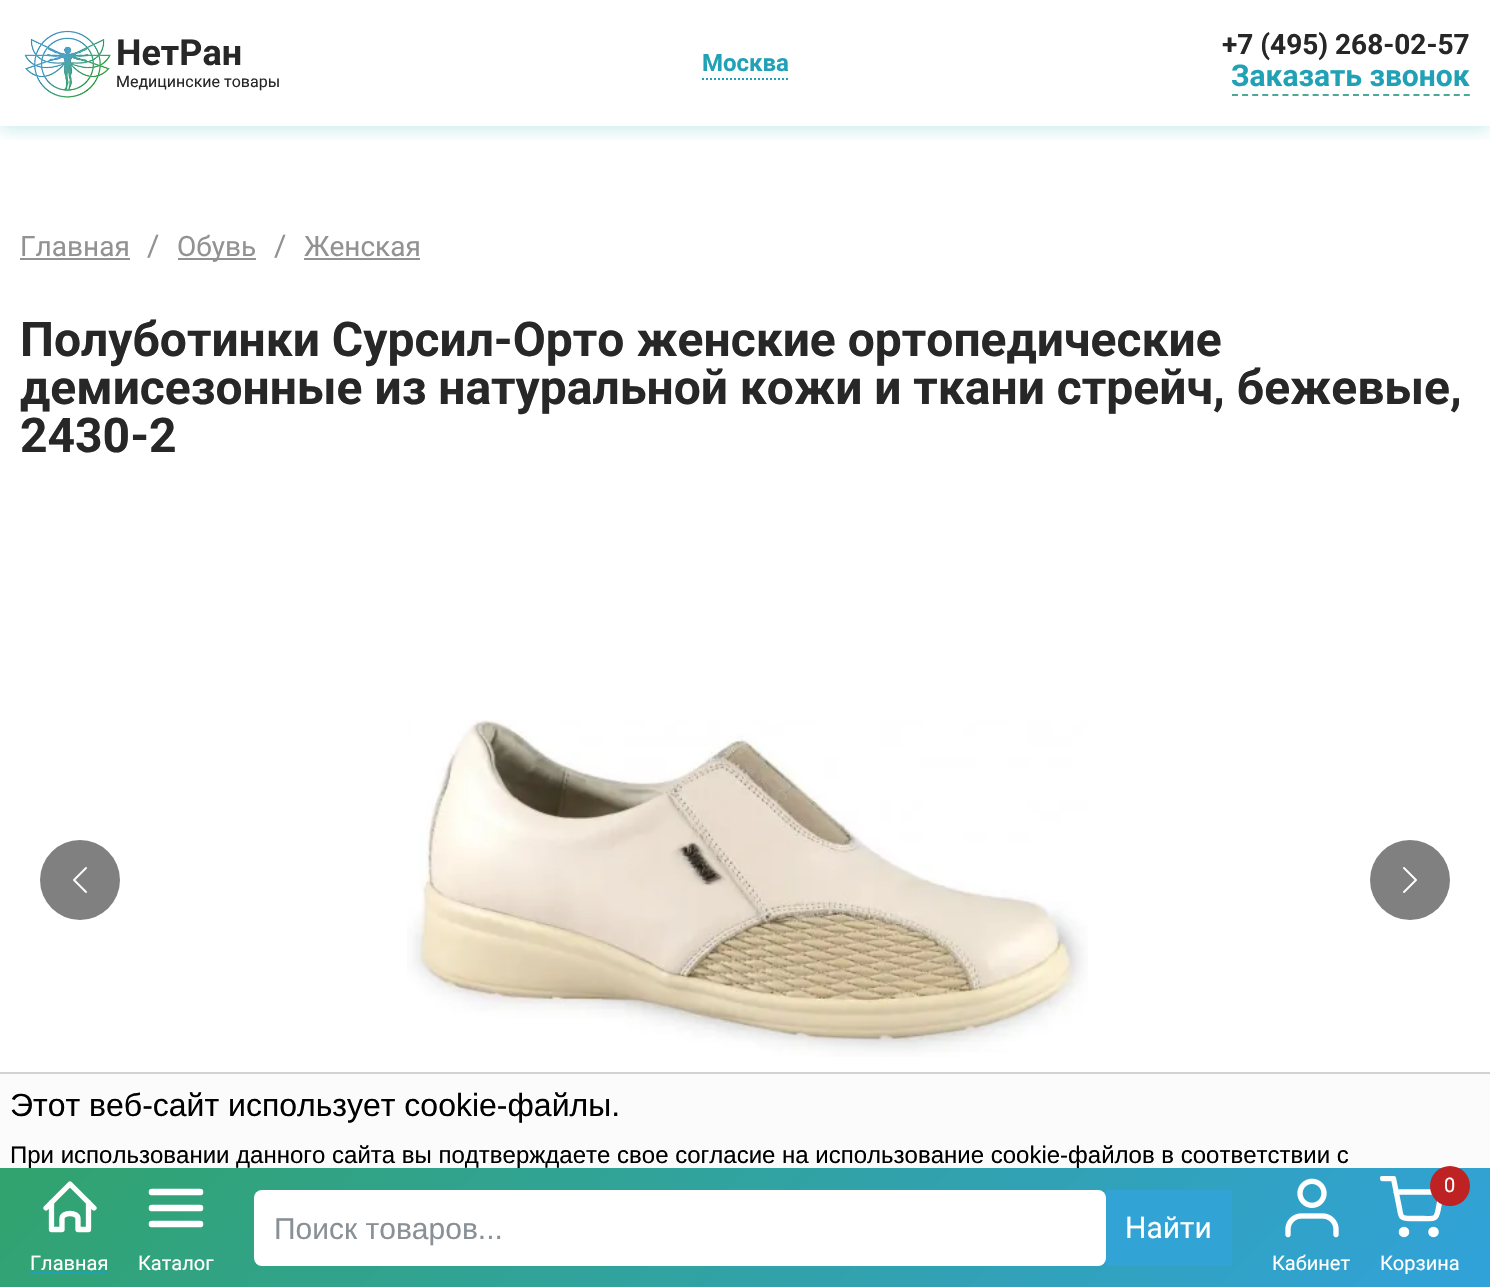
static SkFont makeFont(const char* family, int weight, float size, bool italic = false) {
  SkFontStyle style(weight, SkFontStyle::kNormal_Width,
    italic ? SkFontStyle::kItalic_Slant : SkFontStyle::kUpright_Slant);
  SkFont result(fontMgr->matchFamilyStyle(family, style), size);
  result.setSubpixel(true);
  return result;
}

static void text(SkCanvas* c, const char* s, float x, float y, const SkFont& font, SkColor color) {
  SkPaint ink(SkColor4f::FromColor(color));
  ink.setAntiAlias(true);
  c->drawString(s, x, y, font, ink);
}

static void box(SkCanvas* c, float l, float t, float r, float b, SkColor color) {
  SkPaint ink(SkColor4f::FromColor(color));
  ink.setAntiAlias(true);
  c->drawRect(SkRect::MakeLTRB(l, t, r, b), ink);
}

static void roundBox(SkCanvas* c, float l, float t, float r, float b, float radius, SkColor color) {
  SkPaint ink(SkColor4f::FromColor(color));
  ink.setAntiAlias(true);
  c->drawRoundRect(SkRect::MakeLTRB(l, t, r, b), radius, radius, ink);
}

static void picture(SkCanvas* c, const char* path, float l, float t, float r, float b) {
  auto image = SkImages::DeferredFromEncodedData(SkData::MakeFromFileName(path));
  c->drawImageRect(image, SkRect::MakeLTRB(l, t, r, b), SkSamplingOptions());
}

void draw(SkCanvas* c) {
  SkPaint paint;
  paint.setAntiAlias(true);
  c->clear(0xffffffff);
  box(c, 0, 1074, 1490, 1168, 0xfffbfbfb);
  c->save();
  c->clipRect(SkRect::MakeLTRB(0, 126, 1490, 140));
  paint.setColor(0x33019fa7);
  paint.setMaskFilter(SkMaskFilter::MakeBlur(kNormal_SkBlurStyle, 8));
  c->drawRect(SkRect::MakeLTRB(0, 4, 1490, 130), paint);
  paint.setMaskFilter(nullptr);
  c->restore();
  picture(c, "img_01.png", 24, 30, 111, 98);
  SkFont face1 = makeFont("Roboto", 700, 36);
  text(c, "НетРан", 116, 65, face1, 0xff272727);
  SkFont face2 = makeFont("Roboto", 400, 16);
  text(c, "Медицинские товары", 116, 87, face2, 0xff272727);
  SkFont face3 = makeFont("Roboto", 700, 24);
  text(c, "Москва", 702, 71, face3, 0xff21a1b6);
  paint.setStyle(SkPaint::kStroke_Style);
  paint.setStrokeWidth(2);
  paint.setColor(0xff21a1b6);
  paint.setPathEffect(SkDashPathEffect::Make({{2, 2}}, 0));
  c->drawPath(SkPathBuilder().moveTo(702, 79).lineTo(788, 79).detach(), paint);
  paint.setPathEffect(nullptr);
  SkFont face4 = makeFont("Roboto", 700, 28);
  text(c, "+7 (495) 268-02-57", 1222, 54, face4, 0xff272727);
  paint.setColor(0xff4ba997);
  paint.setPathEffect(SkDashPathEffect::Make({{6, 4.08f}}, 0));
  c->drawPath(SkPathBuilder().moveTo(1232, 95).lineTo(1470, 95).detach(), paint);
  paint.setPathEffect(nullptr);
  SkFont face5 = makeFont("Roboto", 700, 30);
  text(c, "Заказать звонок", 1231, 86, face5, 0xff21a1b6);
  SkFont face6 = makeFont("Roboto", 400, 28);
  text(c, "Главная", 20, 256, face6, 0xff929292);
  box(c, 20, 258, 130, 260, 0xff929292);
  SkFont face7 = makeFont("Roboto", 400, 30);
  text(c, "/", 147, 256, face7, 0xff929292);
  box(c, 178, 258, 256, 260, 0xff929292);
  text(c, "Обувь", 177, 256, face6, 0xff929292);
  text(c, "/", 274, 256, face7, 0xff929292);
  text(c, "Женская", 304, 256, face6, 0xff929292);
  box(c, 304, 258, 420, 260, 0xff929292);
  SkFont face8 = makeFont("Roboto", 700, 48);
  text(c, "Полуботинки Сурсил-Орто женские ортопедические", 20, 356, face8, 0xff272727);
  text(c, "демисезонные из натуральной кожи и ткани стрейч, бежевые,", 20, 404, face8, 0xff272727);
  text(c, "2430-2", 20, 452, face8, 0xff272727);
  paint.setStyle(SkPaint::kFill_Style);
  paint.setColor(0xff808080);
  c->drawCircle(80, 880, 40, paint);
  picture(c, "img_02.png", 73, 867, 87, 893);
  picture(c, "img_03.png", 407, 720, 1088, 1057);
  c->drawCircle(1410, 880, 40, paint);
  picture(c, "img_04.png", 1403, 867, 1417, 893);
  box(c, 0, 1072, 1490, 1074, 0xffd2d2d2);
  SkFont face9 = makeFont("Liberation Sans", 400, 32);
  text(c, "Этот веб-сайт использует cookie-файлы.", 10, 1116, face9, 0xff000000);
  SkFont face10 = makeFont("Liberation Sans", 400, 24);
  text(c, "При использовании данного сайта вы подтверждаете свое согласие на использование cookie-файлов в соответствии с", 10, 1163, face10, 0xff000000);
  {
    const SkColor colors[] = {0xff31a36d, 0xff31a2da};
    const float stops[] = {0, 1};
    const SkPoint ends[] = {{342, 826}, {1148, 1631}};
    paint.setShader(SkGradientShader::MakeLinear(ends, colors, stops, 2, SkTileMode::kClamp));
    paint.setAlpha(255);
  }
  c->drawRect(SkRect::MakeLTRB(0, 1168, 1490, 1287), paint);
  roundBox(c, 254, 1190, 1106, 1266, 8, 0xffffffff);
  SkFont face11 = makeFont("Liberation Sans", 400, 30);
  text(c, "Поиск товаров...", 274, 1239, face11, 0xff899197);
  box(c, 1106, 1190, 1232, 1266, 0xff31a3d5);
  text(c, "Найти", 1125, 1238, face7, 0xffffffff);
  paint.setStyle(SkPaint::kStroke_Style);
  paint.setStrokeWidth(5.3f);
  paint.setStrokeCap(SkPaint::kRound_Cap);
  paint.setStrokeJoin(SkPaint::kRound_Join);
  paint.setShader(nullptr);
  paint.setColor(0xffffffff);
  c->drawPath(SkPathBuilder().moveTo(1404, 1234.5f).cubicTo(1407.5f, 1234.5f, 1407.5f, 1229.5f, 1404, 1229.5f).cubicTo(1400.5f, 1229.5f, 1400.5f, 1234.5f, 1404, 1234.5f).close().moveTo(1433.5f, 1234.5f).cubicTo(1437, 1234.5f, 1437, 1229.5f, 1433.5f, 1229.5f).cubicTo(1430, 1229.5f, 1430, 1234.5f, 1433.5f, 1234.5f).close().detach(), paint);
  c->save();
  c->clipRect(SkRect::MakeLTRB(1380, 1176, 1444, 1240));
  c->drawPath(SkPathBuilder().moveTo(1382.5f, 1178.5f).lineTo(1393.5f, 1178.5f).lineTo(1399.5f, 1208.5f).cubicTo(1401, 1217.5f, 1401, 1218.5f, 1410, 1218.5f).lineTo(1423, 1218.5f).cubicTo(1433, 1218.5f, 1436, 1220.5f, 1438, 1210.5f).lineTo(1441.5f, 1192).lineTo(1396, 1192).detach(), paint);
  c->restore();
  paint.setStyle(SkPaint::kFill_Style);
  paint.setColor(0xffbf2222);
  c->drawCircle(1450, 1186, 20, paint);
  SkFont face12 = makeFont("Roboto", 400, 20);
  text(c, "0", 1444, 1192, face12, 0xffffffff);
  text(c, "Корзина", 1380, 1270, face12, 0xffffffff);
  paint.setStyle(SkPaint::kStroke_Style);
  paint.setColor(0xffffffff);
  c->drawPath(SkPathBuilder().moveTo(46, 1208).lineTo(70, 1184).lineTo(94, 1208).moveTo(51.5f, 1202.5f).lineTo(51.5f, 1229.5f).lineTo(62, 1229.5f).lineTo(62, 1218.5f).cubicTo(62, 1215.5f, 65.5f, 1213.5f, 70, 1213.5f).cubicTo(74.5f, 1213.5f, 78, 1215.5f, 78, 1218.5f).lineTo(78, 1229.5f).lineTo(88.5f, 1229.5f).lineTo(88.5f, 1202.5f).detach(), paint);
  text(c, "Главная", 30, 1270, face12, 0xffffffff);
  box(c, 30, 1272, 108, 1274, 0xff21a1b6);
  paint.setStrokeWidth(6.7f);
  c->drawPath(SkPathBuilder().moveTo(152, 1192).lineTo(200, 1192).moveTo(152, 1208).lineTo(200, 1208).moveTo(152, 1224).lineTo(200, 1224).detach(), paint);
  text(c, "Каталог", 138, 1270, face12, 0xffffffff);
  picture(c, "img_05.png", 1285, 1178, 1339, 1238);
  text(c, "Кабинет", 1272, 1270, face12, 0xffffffff);
}
